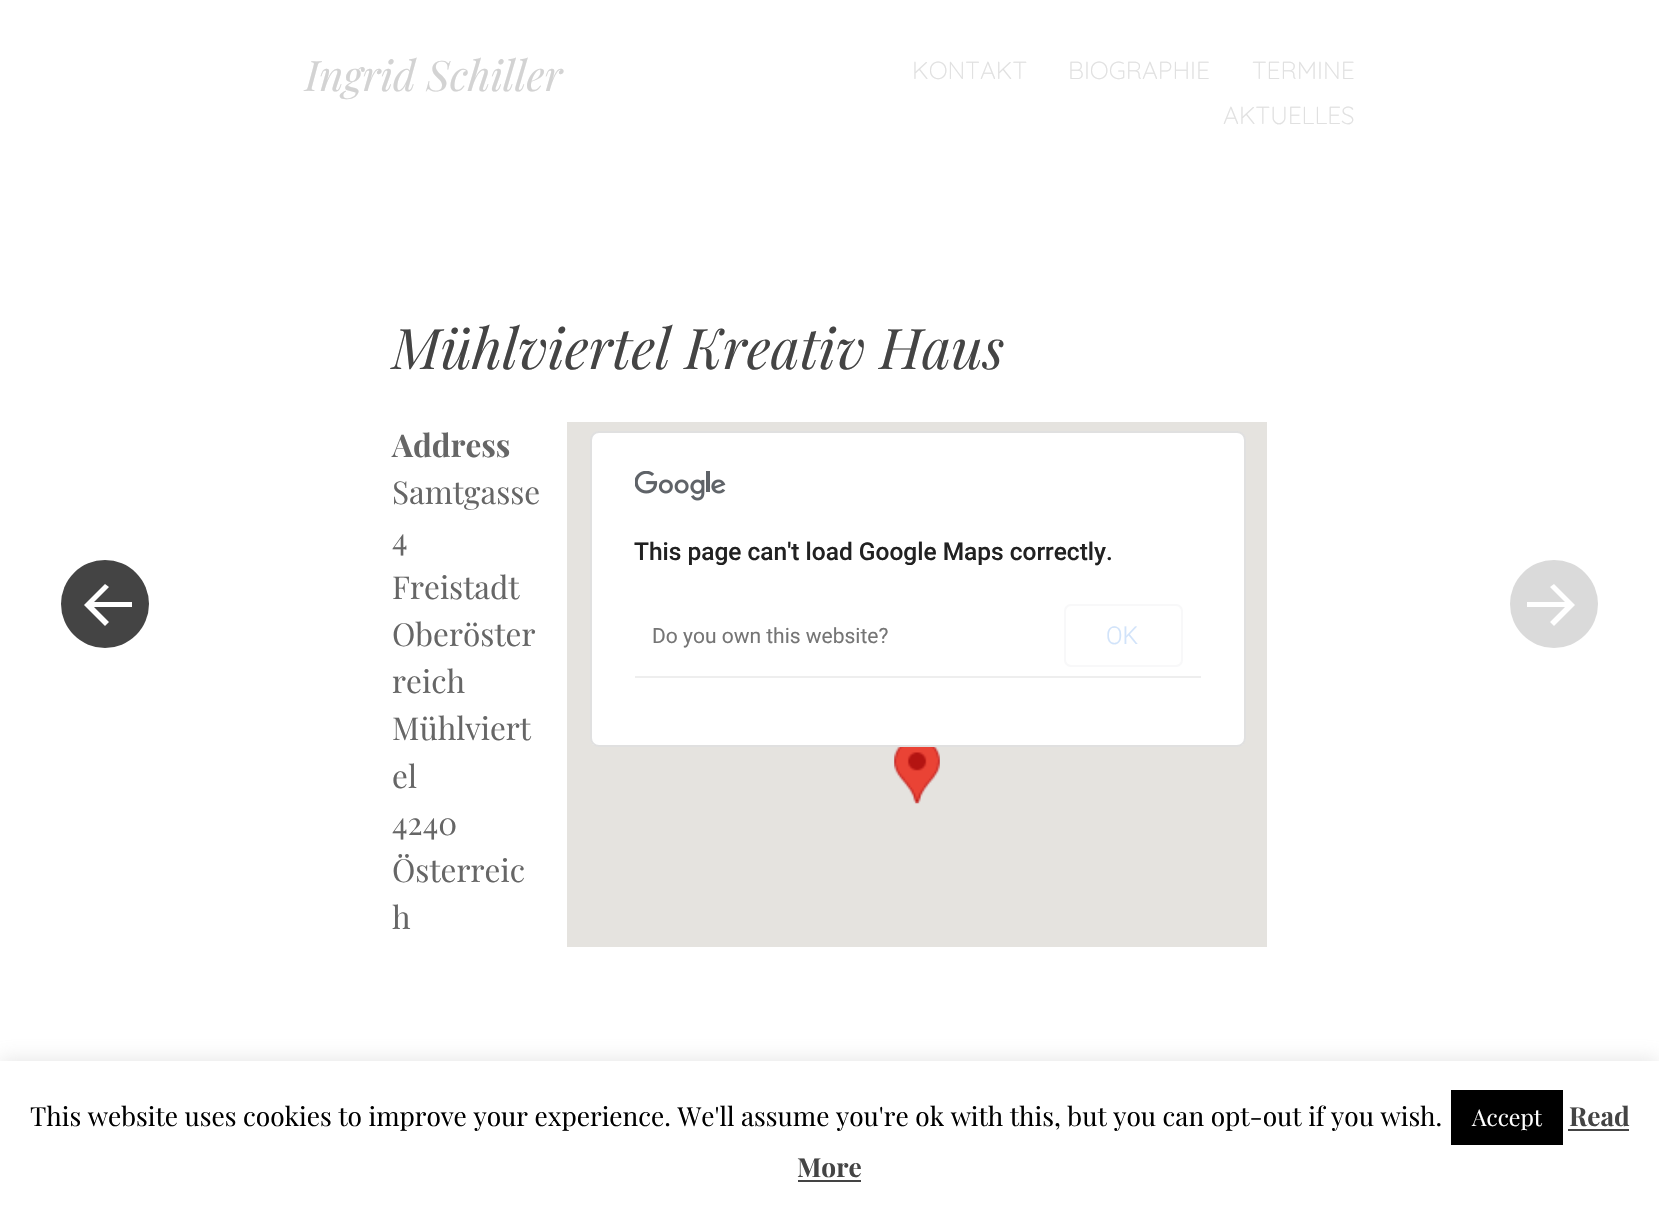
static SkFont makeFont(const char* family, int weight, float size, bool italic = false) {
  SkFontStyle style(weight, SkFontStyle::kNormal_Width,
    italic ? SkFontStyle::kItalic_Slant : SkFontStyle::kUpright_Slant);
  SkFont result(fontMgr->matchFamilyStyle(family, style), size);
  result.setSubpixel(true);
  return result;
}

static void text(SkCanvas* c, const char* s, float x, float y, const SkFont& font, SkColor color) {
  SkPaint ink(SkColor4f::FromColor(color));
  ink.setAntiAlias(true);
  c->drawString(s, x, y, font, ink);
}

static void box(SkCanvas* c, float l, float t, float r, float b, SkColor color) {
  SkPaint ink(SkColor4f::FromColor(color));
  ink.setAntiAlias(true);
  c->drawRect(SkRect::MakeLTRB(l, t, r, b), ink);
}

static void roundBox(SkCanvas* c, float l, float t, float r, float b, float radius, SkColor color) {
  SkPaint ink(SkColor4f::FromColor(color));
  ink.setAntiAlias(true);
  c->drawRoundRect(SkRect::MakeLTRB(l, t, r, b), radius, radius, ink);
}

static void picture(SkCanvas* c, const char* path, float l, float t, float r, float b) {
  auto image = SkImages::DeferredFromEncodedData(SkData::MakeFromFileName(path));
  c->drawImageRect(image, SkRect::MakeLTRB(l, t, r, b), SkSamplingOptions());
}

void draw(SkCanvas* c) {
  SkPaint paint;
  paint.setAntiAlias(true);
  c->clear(0xffffffff);
  SkFont face1 = makeFont("Playfair Display", 400, 42, true);
  text(c, "Ingrid Schiller", 305, 91, face1, 0xffd3d3d3);
  SkFont face2 = makeFont("Quicksand", 300, 24.5f);
  text(c, "KONTAKT", 912, 79, face2, 0xffe0e0e0);
  text(c, "BIOGRAPHIE", 1068, 79, face2, 0xffe0e0e0);
  text(c, "TERMINE", 1252, 79, face2, 0xffe0e0e0);
  text(c, "AKTUELLES", 1223, 124, face2, 0xffe0e0e0);
  SkFont face3 = makeFont("Playfair Display", 400, 56, true);
  text(c, "Mühlviertel Kreativ Haus", 392, 369, face3, 0xff444444);
  SkFont face4 = makeFont("Playfair Display", 700, 31.5f);
  text(c, "Address", 392, 457, face4, 0xff666666);
  SkFont face5 = makeFont("Playfair Display", 400, 31.5f);
  text(c, "Samtgasse", 392, 504, face5, 0xff666666);
  text(c, "4", 392, 551, face5, 0xff666666);
  text(c, "Freistadt", 392, 599, face5, 0xff666666);
  text(c, "Oberöster", 392, 646, face5, 0xff666666);
  text(c, "reich", 392, 693, face5, 0xff666666);
  text(c, "Mühlviert", 392, 740, face5, 0xff666666);
  text(c, "el", 392, 788, face5, 0xff666666);
  text(c, "4240", 392, 835, face5, 0xff666666);
  text(c, "Österreic", 392, 882, face5, 0xff666666);
  text(c, "h", 392, 929, face5, 0xff666666);
  box(c, 567, 422, 1267, 947, 0xffe5e3df);
  picture(c, "img_01.png", 894, 747, 940, 804);
  roundBox(c, 590, 431, 1246, 747, 9, 0xffffffff);
  paint.setStyle(SkPaint::kStroke_Style);
  paint.setStrokeWidth(2);
  paint.setColor(0x1f000000);
  c->drawRoundRect(SkRect::MakeLTRB(591, 432, 1245, 746), 8, 8, paint);
  picture(c, "img_02.png", 635, 471, 726, 501);
  SkFont face6 = makeFont("Roboto", 500, 24.5f);
  text(c, "This page can't load Google Maps correctly.", 634, 560, face6, 0xff212121);
  box(c, 635, 676, 1201, 678, 0xffeeeeee);
  SkFont face7 = makeFont("Roboto", 400, 21);
  text(c, "Do you own this website?", 652, 643, face7, 0xff757575);
  paint.setColor(0xfff8f8f9);
  c->drawRoundRect(SkRect::MakeLTRB(1065, 605, 1182, 666), 6, 6, paint);
  SkFont face8 = makeFont("Roboto", 300, 24.5f);
  text(c, "OK", 1106, 644, face8, 0xffd1e3fa);
  paint.setStyle(SkPaint::kFill_Style);
  paint.setColor(0xff444444);
  c->drawCircle(105, 604, 44, paint);
  paint.setColor(0xffffffff);
  c->drawPath(SkPathBuilder().moveTo(84, 605).lineTo(105, 626).lineTo(109, 622).lineTo(94, 607).lineTo(132, 607).lineTo(132, 602).lineTo(94, 602).lineTo(109, 587).lineTo(105, 584).close().detach(), paint);
  paint.setColor(0xffdadada);
  c->drawCircle(1554, 604, 44, paint);
  paint.setColor(0xffffffff);
  c->drawPath(SkPathBuilder().moveTo(1575, 605).lineTo(1554, 626).lineTo(1550, 622).lineTo(1565, 607).lineTo(1527, 607).lineTo(1527, 602).lineTo(1565, 602).lineTo(1550, 587).lineTo(1554, 584).close().detach(), paint);
  paint.setColor(0x4dacabab);
  paint.setMaskFilter(SkMaskFilter::MakeBlur(kNormal_SkBlurStyle, 9));
  c->drawRect(SkRect::MakeLTRB(0, 1059, 1659, 1206), paint);
  paint.setMaskFilter(nullptr);
  box(c, 0, 1061, 1659, 1207, 0xffffffff);
  SkFont face9 = makeFont("Playfair Display", 400, 26.25f);
  text(c, "This website uses cookies to improve your experience. We'll assume you're ok with this, but you can opt-out if you wish.", 30, 1126, face9, 0xff000000);
  box(c, 1451, 1090, 1563, 1145, 0xff000000);
  SkFont face10 = makeFont("Playfair Display", 400, 23);
  text(c, "Accept", 1472, 1126, face10, 0xffffffff);
  SkFont face11 = makeFont("Playfair Display", 700, 26.25f);
  text(c, "Read", 1569, 1126, face11, 0xff444444);
  box(c, 1568, 1129, 1629, 1131, 0xff444444);
  text(c, "More", 797, 1177, face11, 0xff444444);
  box(c, 798, 1180, 861, 1182, 0xff444444);
}
